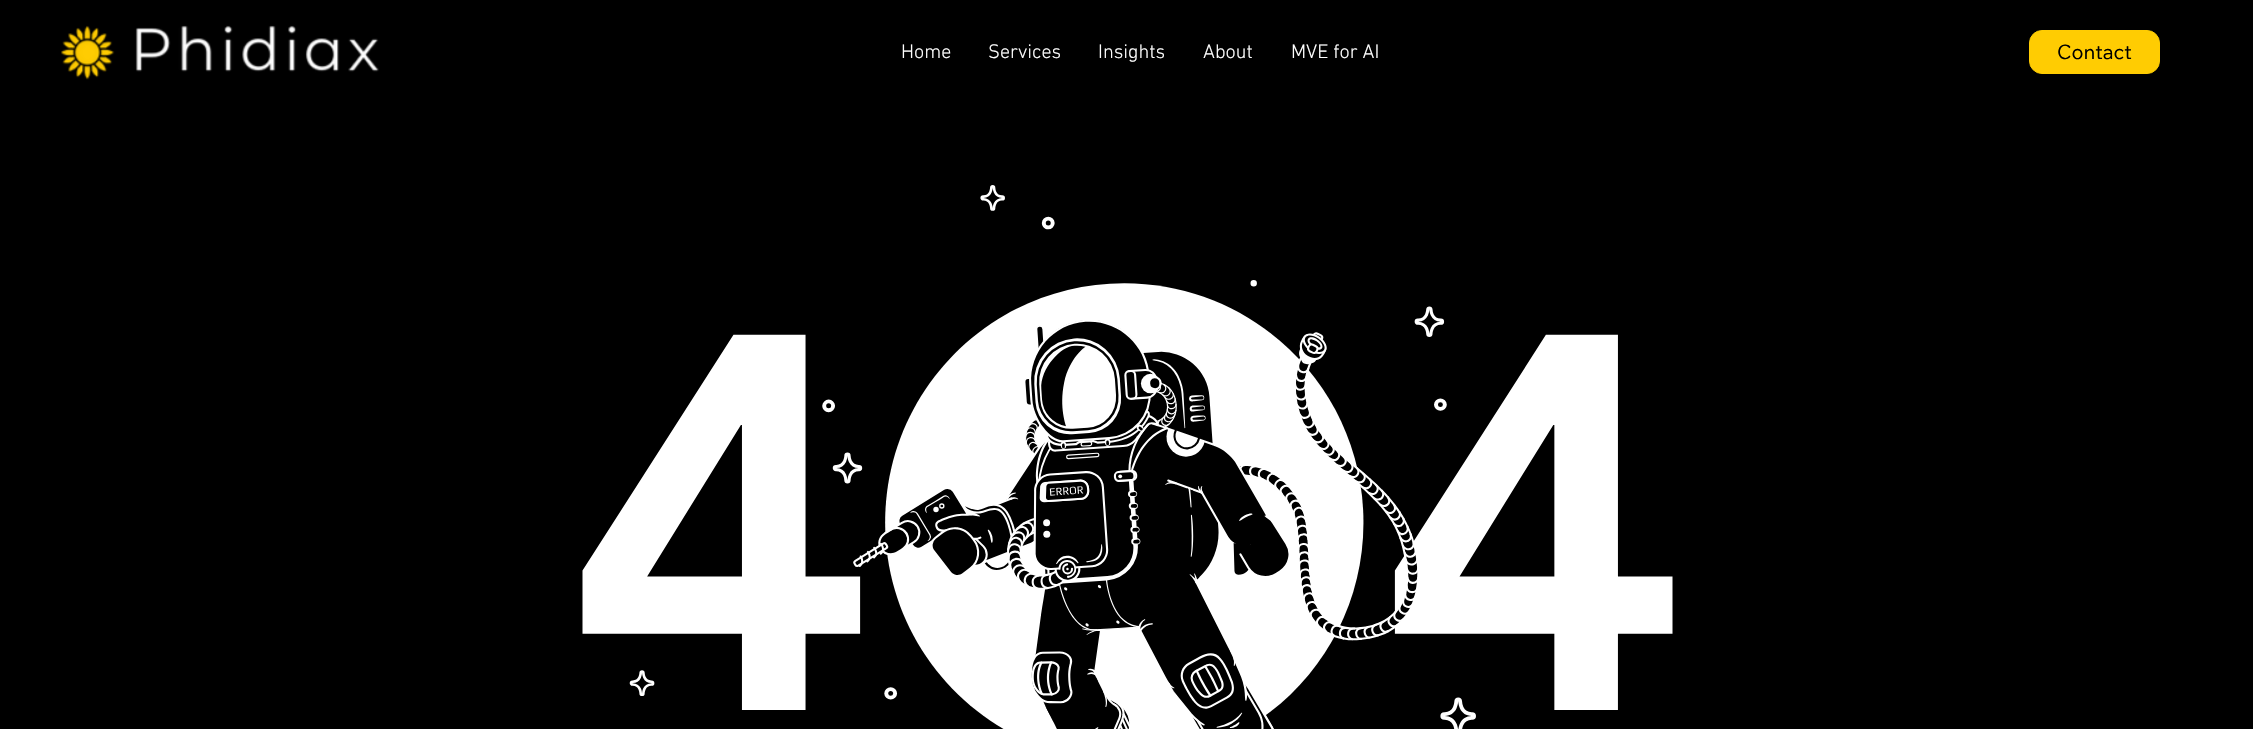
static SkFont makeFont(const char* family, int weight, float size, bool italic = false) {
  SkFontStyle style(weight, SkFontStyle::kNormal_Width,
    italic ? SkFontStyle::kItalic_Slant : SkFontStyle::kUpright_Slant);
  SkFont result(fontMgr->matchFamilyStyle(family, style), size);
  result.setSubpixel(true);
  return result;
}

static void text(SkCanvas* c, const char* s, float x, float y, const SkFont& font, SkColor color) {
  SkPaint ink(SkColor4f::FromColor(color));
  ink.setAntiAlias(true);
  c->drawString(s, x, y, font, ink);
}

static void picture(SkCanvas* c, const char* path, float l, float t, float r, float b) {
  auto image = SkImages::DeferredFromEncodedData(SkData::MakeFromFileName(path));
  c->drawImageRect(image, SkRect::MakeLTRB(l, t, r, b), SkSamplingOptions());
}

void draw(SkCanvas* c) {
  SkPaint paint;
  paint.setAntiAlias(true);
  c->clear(0xff000000);
  picture(c, "img_01.png", 61, 25, 379, 80);
  SkFont face1 = makeFont("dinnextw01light", 300, 20);
  text(c, "Home", 901, 58, face1, 0xffffffff);
  text(c, "Services", 988, 58, face1, 0xffffffff);
  text(c, "Insights", 1098, 58, face1, 0xffffffff);
  text(c, "About", 1203, 58, face1, 0xffffffff);
  text(c, "MVE for AI", 1291, 58, face1, 0xffffffff);
  paint.setColor(0xffffcc02);
  c->drawRoundRect(SkRect::MakeLTRB(2029.5f, 30.5f, 2159.5f, 73.5f), 12.5f, 12.5f, paint);
  paint.setStyle(SkPaint::kStroke_Style);
  paint.setStrokeWidth(1);
  c->drawRoundRect(SkRect::MakeLTRB(2029.5f, 30.5f, 2159.5f, 73.5f), 12.5f, 12.5f, paint);
  SkFont face2 = makeFont("Wix Madefor Text", 400, 20);
  text(c, "Contact", 2057, 59, face2, 0xff000000);
  picture(c, "img_02.png", 582, 185, 1673, 729);
}
